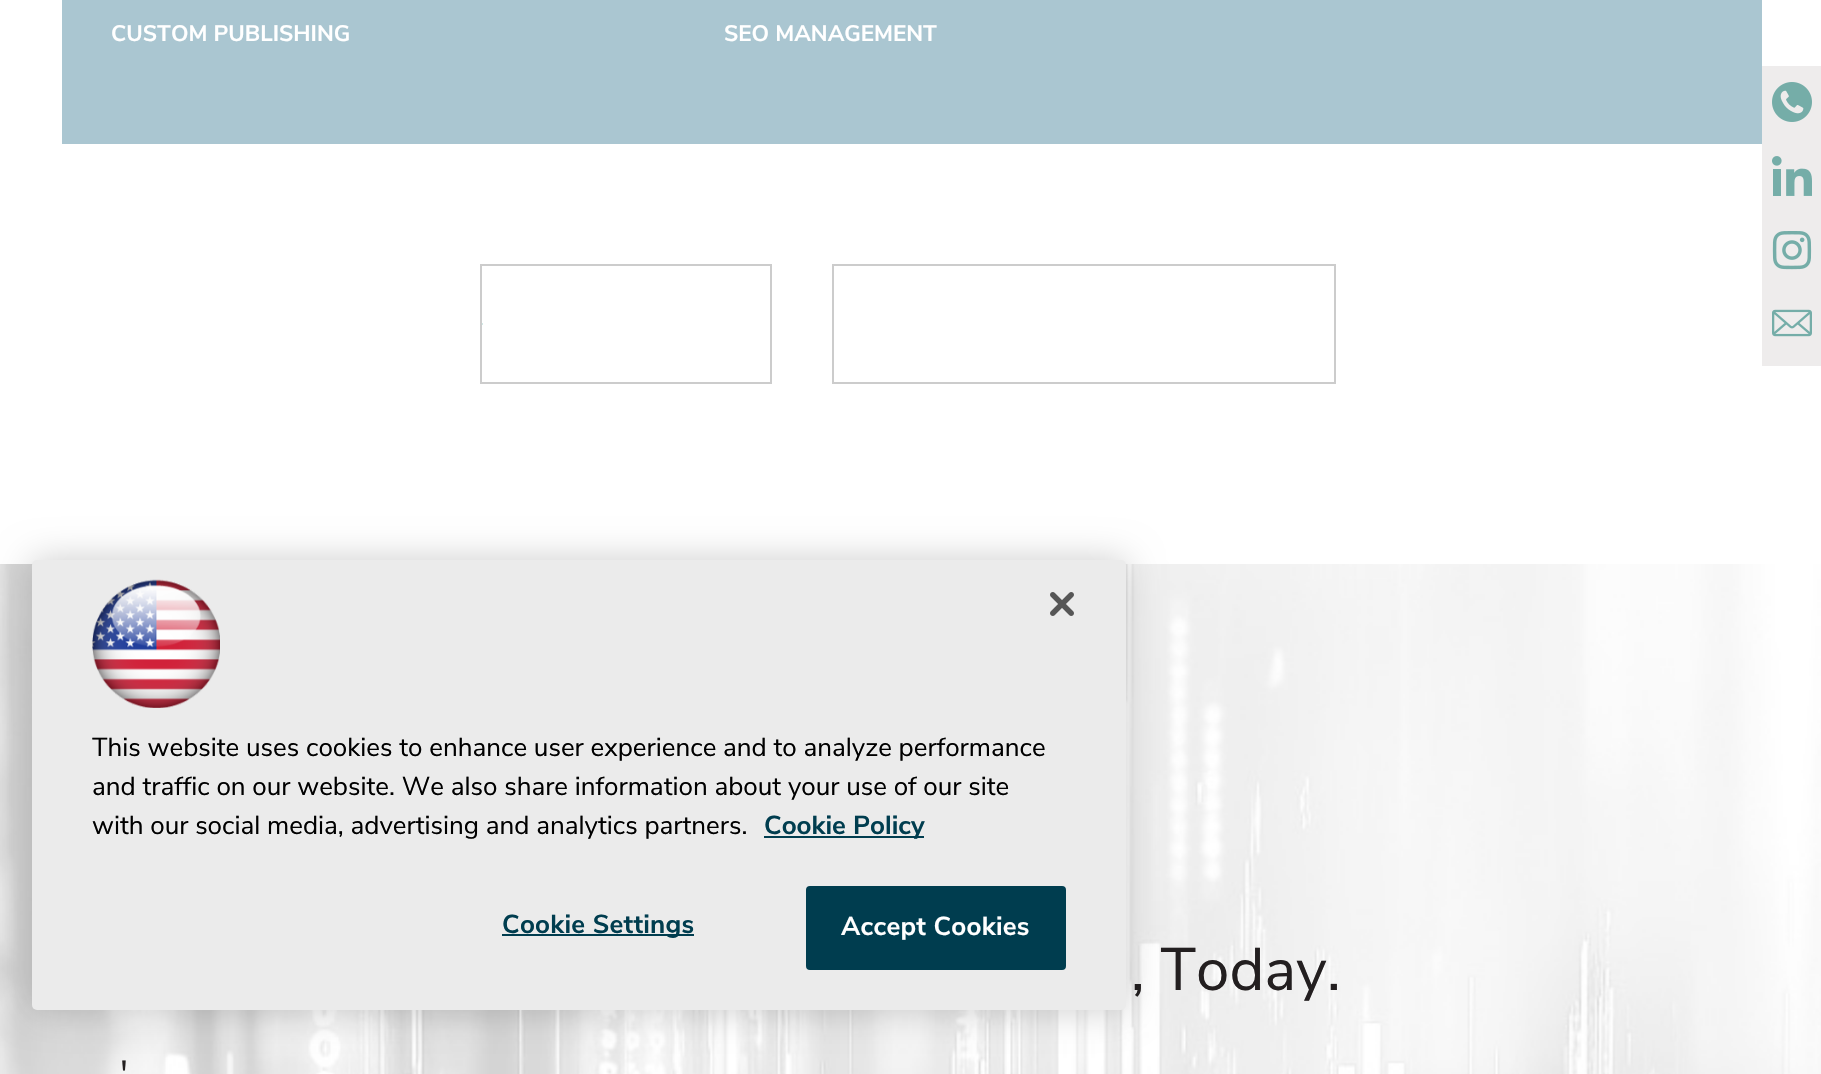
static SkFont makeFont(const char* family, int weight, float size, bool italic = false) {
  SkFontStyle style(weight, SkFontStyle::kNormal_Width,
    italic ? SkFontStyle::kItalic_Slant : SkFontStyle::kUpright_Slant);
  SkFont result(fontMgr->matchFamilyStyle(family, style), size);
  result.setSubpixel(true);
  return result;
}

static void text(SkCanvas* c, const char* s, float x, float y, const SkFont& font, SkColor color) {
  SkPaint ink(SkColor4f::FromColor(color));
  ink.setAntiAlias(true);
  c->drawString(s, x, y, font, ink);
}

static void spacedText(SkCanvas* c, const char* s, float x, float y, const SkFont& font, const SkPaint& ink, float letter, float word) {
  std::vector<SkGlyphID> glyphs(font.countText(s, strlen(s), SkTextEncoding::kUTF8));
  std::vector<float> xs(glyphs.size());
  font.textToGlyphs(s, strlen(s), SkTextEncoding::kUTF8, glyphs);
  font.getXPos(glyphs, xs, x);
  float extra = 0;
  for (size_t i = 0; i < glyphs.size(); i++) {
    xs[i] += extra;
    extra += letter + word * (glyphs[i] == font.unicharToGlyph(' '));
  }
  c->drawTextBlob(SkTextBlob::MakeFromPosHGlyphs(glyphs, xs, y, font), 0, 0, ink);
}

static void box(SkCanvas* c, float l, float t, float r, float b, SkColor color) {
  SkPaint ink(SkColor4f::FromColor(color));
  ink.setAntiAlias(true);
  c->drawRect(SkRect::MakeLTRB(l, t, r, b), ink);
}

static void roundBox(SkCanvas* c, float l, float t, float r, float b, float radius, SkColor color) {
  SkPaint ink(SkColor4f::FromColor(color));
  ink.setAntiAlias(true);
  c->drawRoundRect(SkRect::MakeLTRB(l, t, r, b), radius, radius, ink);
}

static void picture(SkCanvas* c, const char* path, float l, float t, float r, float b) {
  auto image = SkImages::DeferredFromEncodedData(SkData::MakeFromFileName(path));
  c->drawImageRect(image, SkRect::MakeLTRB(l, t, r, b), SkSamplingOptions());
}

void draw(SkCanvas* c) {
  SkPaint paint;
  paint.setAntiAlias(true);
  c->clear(0xffffffff);
  box(c, 62, 0, 1762, 144, 0xffaac6d1);
  SkFont face1 = makeFont("Nunito Sans", 700, 22.5f);
  text(c, "CUSTOM PUBLISHING", 111, 41, face1, 0xffffffff);
  text(c, "SEO MANAGEMENT", 724, 41, face1, 0xffffffff);
  paint.setStyle(SkPaint::kStroke_Style);
  paint.setStrokeWidth(2);
  paint.setColor(0xffcccccc);
  c->drawRect(SkRect::MakeLTRB(481, 265, 771, 383), paint);
  c->save();
  c->clipRect(SkRect::MakeLTRB(482, 266, 770, 382));
  paint.setStyle(SkPaint::kFill_Style);
  paint.setColor(0xff48a49c);
  c->drawPath(SkPathBuilder().moveTo(386, 266).lineTo(483, 324).lineTo(386, 382).lineTo(96, 382).lineTo(96, 266).close().detach(), paint);
  c->restore();
  paint.setStyle(SkPaint::kStroke_Style);
  paint.setColor(0xffcccccc);
  c->drawRect(SkRect::MakeLTRB(833, 265, 1335, 383), paint);
  picture(c, "img_01.png", 0, 564, 1821, 1074);
  SkFont face2 = makeFont("Nunito Sans", 400, 60);
  text(c, ", Today.", 1131, 990, face2, 0xff231f20);
  SkFont face3 = makeFont("Nunito Sans", 400, 36);
  text(c, "'", 120, 1086, face3, 0xff231f20);
  box(c, 1762, 66, 1821, 366, 0xffeeecec);
  picture(c, "img_02.png", 1772, 82, 1812, 122);
  picture(c, "img_03.png", 1772, 156, 1812, 196);
  picture(c, "img_04.png", 1772, 231, 1812, 270);
  picture(c, "img_05.png", 1772, 309, 1812, 337);
  paint.setStyle(SkPaint::kFill_Style);
  paint.setColor(0x33000000);
  paint.setMaskFilter(SkMaskFilter::MakeBlur(kNormal_SkBlurStyle, 18));
  c->drawRoundRect(SkRect::MakeLTRB(32, 560, 1126, 1010), 5, 5, paint);
  paint.setMaskFilter(nullptr);
  roundBox(c, 32, 560, 1126, 1010, 5, 0xffebebeb);
  picture(c, "img_06.png", 1050, 592, 1074, 616);
  picture(c, "img_07.png", 92, 579, 220, 708);
  SkFont face4 = makeFont("Nunito Sans", 400, 26);
  text(c, "This website uses cookies to enhance user experience and to analyze performance", 92, 756, face4, 0xff000000);
  text(c, "and traffic on our website. We also share information about your use of our site", 92, 795, face4, 0xff000000);
  text(c, "with our social media, advertising and analytics partners.", 92, 834, face4, 0xff000000);
  box(c, 764, 836, 924, 838, 0xff003d4f);
  SkFont face5 = makeFont("Nunito Sans", 700, 26);
  text(c, "Cookie Policy", 764, 834, face5, 0xff003d4f);
  box(c, 502, 934, 694, 936, 0xff003d4f);
  paint.setColor(0xff003d4f);
  spacedText(c, "Cookie Settings", 502, 933, face5, paint, 0.25f, 0);
  c->drawRoundRect(SkRect::MakeLTRB(807, 887, 1065, 969), 3, 3, paint);
  paint.setStyle(SkPaint::kStroke_Style);
  c->drawRoundRect(SkRect::MakeLTRB(807, 887, 1065, 969), 3, 3, paint);
  paint.setStyle(SkPaint::kFill_Style);
  paint.setColor(0xffffffff);
  spacedText(c, "Accept Cookies", 841, 935, face5, paint, 0.25f, 0);
}
